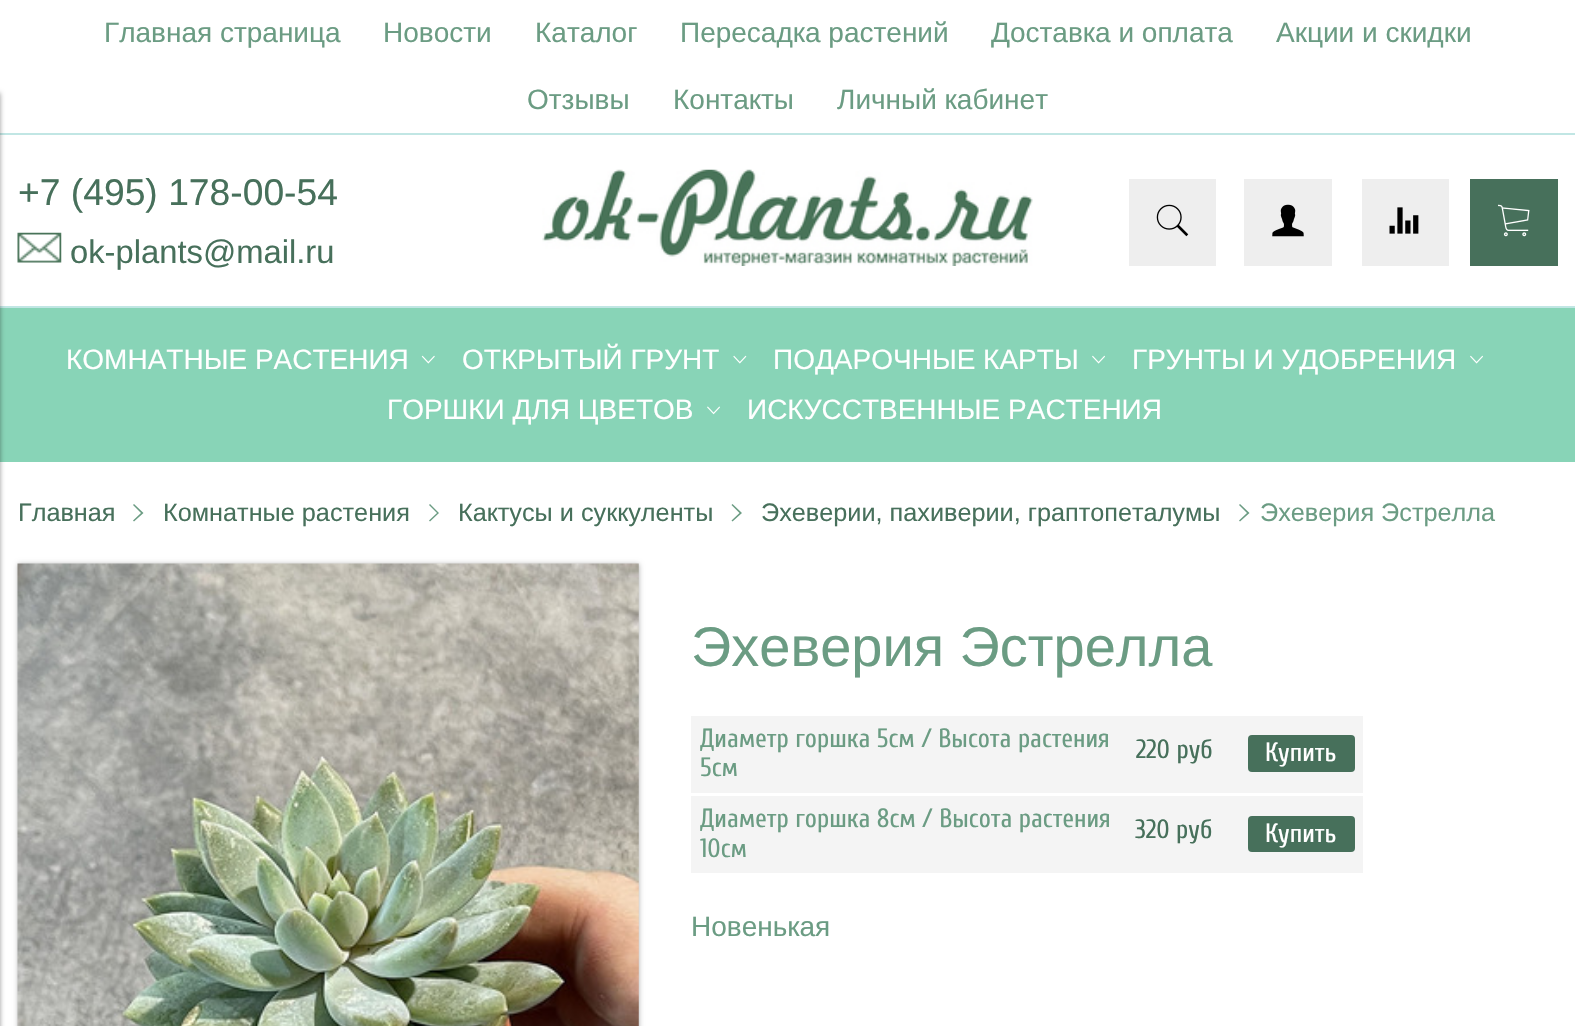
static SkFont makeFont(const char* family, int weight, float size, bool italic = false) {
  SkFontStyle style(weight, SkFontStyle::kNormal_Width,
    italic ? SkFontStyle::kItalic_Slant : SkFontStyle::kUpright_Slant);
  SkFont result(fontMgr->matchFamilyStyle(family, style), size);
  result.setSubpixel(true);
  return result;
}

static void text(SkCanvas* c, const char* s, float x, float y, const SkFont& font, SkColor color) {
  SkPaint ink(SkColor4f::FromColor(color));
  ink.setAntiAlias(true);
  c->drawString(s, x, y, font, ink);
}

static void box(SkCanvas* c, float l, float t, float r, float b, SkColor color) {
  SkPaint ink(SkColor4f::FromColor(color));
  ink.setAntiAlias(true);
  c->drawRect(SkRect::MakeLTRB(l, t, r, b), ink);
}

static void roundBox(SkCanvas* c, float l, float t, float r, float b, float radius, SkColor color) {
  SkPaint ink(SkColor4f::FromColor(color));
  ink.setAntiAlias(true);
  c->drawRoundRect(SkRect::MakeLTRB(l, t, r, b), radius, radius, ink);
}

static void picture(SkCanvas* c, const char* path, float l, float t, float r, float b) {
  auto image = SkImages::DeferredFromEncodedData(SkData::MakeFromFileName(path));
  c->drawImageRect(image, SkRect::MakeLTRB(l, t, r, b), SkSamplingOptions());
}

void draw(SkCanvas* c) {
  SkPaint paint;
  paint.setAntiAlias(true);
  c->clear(0xffffffff);
  box(c, 0, 133, 1575, 135, 0xffc1e6e4);
  box(c, 0, 306, 1575, 308, 0xffc1e6e4);
  box(c, 0, 308, 1575, 462, 0xff88d4b7);
  paint.setColor(0x66000000);
  paint.setMaskFilter(SkMaskFilter::MakeBlur(kNormal_SkBlurStyle, 2.5f));
  c->drawRect(SkRect::MakeLTRB(-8, 93, 0, 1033), paint);
  paint.setMaskFilter(nullptr);
  SkFont face1 = makeFont("Liberation Sans", 400, 28);
  text(c, "Главная страница", 104, 42, face1, 0xff6b9c83);
  text(c, "Новости", 383, 42, face1, 0xff6b9c83);
  text(c, "Каталог", 535, 42, face1, 0xff6b9c83);
  text(c, "Пересадка растений", 680, 42, face1, 0xff6b9c83);
  text(c, "Доставка и оплата", 991, 42, face1, 0xff6b9c83);
  text(c, "Акции и скидки", 1276, 42, face1, 0xff6b9c83);
  text(c, "Отзывы", 527, 109, face1, 0xff6b9c83);
  text(c, "Контакты", 673, 109, face1, 0xff6b9c83);
  text(c, "Личный кабинет", 837, 109, face1, 0xff6b9c83);
  SkFont face2 = makeFont("Liberation Sans", 400, 37.25f);
  text(c, "+7 (495) 178-00-54", 18, 205, face2, 0xff47705b);
  picture(c, "img_01.png", 17, 232, 62, 263);
  SkFont face3 = makeFont("Liberation Sans", 400, 32.75f);
  text(c, "ok-plants@mail.ru", 70, 263, face3, 0xff47705b);
  picture(c, "img_02.png", 542, 169, 1033, 266);
  box(c, 1129, 179, 1216, 266, 0xffeeeeee);
  picture(c, "img_03.png", 1156, 204, 1189, 237);
  box(c, 1244, 179, 1332, 266, 0xffeeeeee);
  picture(c, "img_04.png", 1272, 204, 1304, 237);
  box(c, 1362, 179, 1449, 266, 0xffeeeeee);
  picture(c, "img_05.png", 1389, 207, 1419, 234);
  box(c, 1470, 179, 1558, 266, 0xff47705b);
  picture(c, "img_06.png", 1498, 204, 1530, 237);
  text(c, "КОМНАТНЫЕ РАСТЕНИЯ", 66, 369, face1, 0xffffffff);
  picture(c, "img_07.png", 421, 355, 435, 364);
  text(c, "ОТКРЫТЫЙ ГРУНТ", 462, 369, face1, 0xffffffff);
  picture(c, "img_08.png", 733, 355, 747, 364);
  text(c, "ПОДАРОЧНЫЕ КАРТЫ", 773, 369, face1, 0xffffffff);
  picture(c, "img_09.png", 1092, 355, 1105, 364);
  text(c, "ГРУНТЫ И УДОБРЕНИЯ", 1132, 369, face1, 0xffffffff);
  picture(c, "img_09.png", 1470, 355, 1483, 364);
  text(c, "ГОРШКИ ДЛЯ ЦВЕТОВ", 387, 419, face1, 0xffffffff);
  picture(c, "img_10.png", 707, 406, 720, 415);
  text(c, "ИСКУССТВЕННЫЕ РАСТЕНИЯ", 747, 419, face1, 0xffffffff);
  SkFont face4 = makeFont("Liberation Sans", 400, 25.25f);
  text(c, "Главная", 18, 521, face4, 0xff47705b);
  paint.setColor(0xff6b9c83);
  c->drawPath(SkPathBuilder().moveTo(133, 505).lineTo(134, 504).lineTo(143.5f, 513).lineTo(134, 521.5f).lineTo(133, 520.5f).lineTo(141, 513).close().detach(), paint);
  text(c, "Комнатные растения", 163, 521, face4, 0xff47705b);
  c->drawPath(SkPathBuilder().moveTo(429, 505).lineTo(430, 504).lineTo(439, 513).lineTo(430, 521.5f).lineTo(429, 520.5f).lineTo(437, 513).close().detach(), paint);
  text(c, "Кактусы и суккуленты", 458, 521, face4, 0xff47705b);
  c->drawPath(SkPathBuilder().moveTo(731.5f, 505).lineTo(732.5f, 504).lineTo(742, 513).lineTo(732.5f, 521.5f).lineTo(731.5f, 520.5f).lineTo(739.5f, 513).close().detach(), paint);
  text(c, "Эхеверии, пахиверии, граптопеталумы", 761, 521, face4, 0xff47705b);
  c->drawPath(SkPathBuilder().moveTo(1239, 505).lineTo(1240, 504).lineTo(1249.5f, 513).lineTo(1240, 521.5f).lineTo(1239, 520.5f).lineTo(1247, 513).close().detach(), paint);
  text(c, "Эхеверия Эстрелла", 1260, 521, face4, 0xff6b9c83);
  paint.setColor(0x4d000000);
  paint.setMaskFilter(SkMaskFilter::MakeBlur(kNormal_SkBlurStyle, 2.5f));
  c->drawRect(SkRect::MakeLTRB(18, 564, 639, 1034), paint);
  paint.setMaskFilter(nullptr);
  picture(c, "img_11.png", 17, 563, 639, 1026);
  SkFont face5 = makeFont("Liberation Sans", 400, 56);
  text(c, "Эхеверия Эстрелла", 691, 666, face5, 0xff6b9c83);
  box(c, 691, 716, 1363, 793, 0xfff4f4f4);
  SkFont face6 = makeFont("Cuprum", 400, 26.25f);
  text(c, "Диаметр горшка 5см / Высота растения", 700, 747, face6, 0xff6b9c83);
  text(c, "5см", 700, 776, face6, 0xff6b9c83);
  text(c, "220 руб", 1136, 758, face6, 0xff47705b);
  roundBox(c, 1248, 735, 1355, 772, 4, 0xff47705b);
  text(c, "Купить", 1265, 761, face6, 0xffffffff);
  box(c, 691, 796, 1363, 873, 0xfff4f4f4);
  text(c, "Диаметр горшка 8см / Высота растения", 700, 827, face6, 0xff6b9c83);
  text(c, "10см", 700, 857, face6, 0xff6b9c83);
  text(c, "320 руб", 1135, 838, face6, 0xff47705b);
  roundBox(c, 1248, 816, 1355, 852, 4, 0xff47705b);
  text(c, "Купить", 1265, 842, face6, 0xffffffff);
  text(c, "Новенькая", 691, 936, face1, 0xff6b9c83);
}
